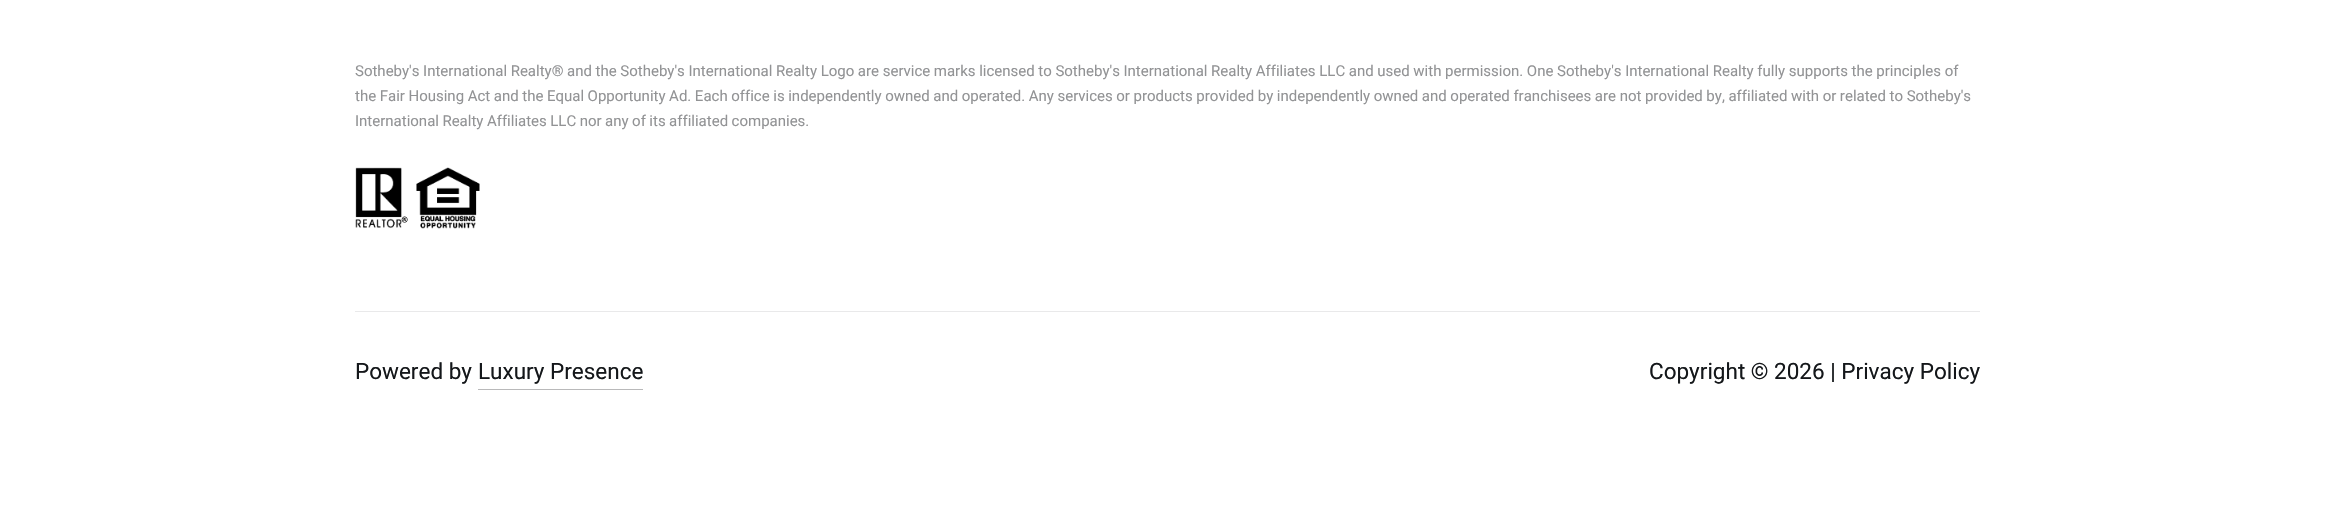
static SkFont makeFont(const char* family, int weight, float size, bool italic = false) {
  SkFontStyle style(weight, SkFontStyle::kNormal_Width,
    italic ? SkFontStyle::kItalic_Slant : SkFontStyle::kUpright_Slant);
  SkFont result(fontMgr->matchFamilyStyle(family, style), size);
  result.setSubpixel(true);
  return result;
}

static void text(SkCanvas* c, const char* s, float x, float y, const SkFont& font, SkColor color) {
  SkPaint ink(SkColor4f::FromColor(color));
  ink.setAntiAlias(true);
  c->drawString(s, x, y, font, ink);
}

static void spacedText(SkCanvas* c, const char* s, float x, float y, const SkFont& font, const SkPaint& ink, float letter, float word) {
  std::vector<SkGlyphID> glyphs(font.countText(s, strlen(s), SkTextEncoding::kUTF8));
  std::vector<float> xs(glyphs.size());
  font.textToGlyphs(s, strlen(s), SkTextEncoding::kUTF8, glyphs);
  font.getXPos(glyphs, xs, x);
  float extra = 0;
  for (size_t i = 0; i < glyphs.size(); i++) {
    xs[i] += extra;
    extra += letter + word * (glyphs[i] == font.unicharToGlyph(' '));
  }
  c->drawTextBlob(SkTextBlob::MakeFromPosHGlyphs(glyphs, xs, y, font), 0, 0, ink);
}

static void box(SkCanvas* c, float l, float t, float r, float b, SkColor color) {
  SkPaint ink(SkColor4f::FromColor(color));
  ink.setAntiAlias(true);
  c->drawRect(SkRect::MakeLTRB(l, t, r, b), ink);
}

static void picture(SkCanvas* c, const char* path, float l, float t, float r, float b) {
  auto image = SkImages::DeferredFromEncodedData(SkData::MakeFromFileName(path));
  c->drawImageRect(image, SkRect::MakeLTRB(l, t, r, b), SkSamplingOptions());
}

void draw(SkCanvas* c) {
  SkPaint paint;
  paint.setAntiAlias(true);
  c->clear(0xffffffff);
  SkFont face1 = makeFont("Roboto", 400, 15);
  paint.setColor(0xff929395);
  spacedText(c, "Sotheby's International Realty® and the Sotheby's International Realty Logo are service marks licensed to Sotheby's International Realty Affiliates LLC and used with permission. One Sotheby's International Realty fully supports the principles of", 355, 76, face1, paint, 0, -0.1f);
  spacedText(c, "the Fair Housing Act and the Equal Opportunity Ad. Each office is independently owned and operated. Any services or products provided by independently owned and operated franchisees are not provided by, affiliated with or related to Sotheby's", 355, 101, face1, paint, 0, -0.15f);
  spacedText(c, "International Realty Affiliates LLC nor any of its affiliated companies.", 355, 126, face1, paint, 0, -0.25f);
  picture(c, "img_01.png", 355, 167, 480, 229);
  box(c, 355, 311, 1980, 312, 0xffe9e9ea);
  SkFont face2 = makeFont("Roboto", 400, 22.5f);
  text(c, "Powered by", 355, 379, face2, 0xff14171a);
  text(c, "Luxury Presence", 478, 379, face2, 0xff14171a);
  box(c, 478, 389, 643, 390, 0xffb9b9ba);
  text(c, "Copyright © 2026 | Privacy Policy", 1649, 379, face2, 0xff14171a);
}
